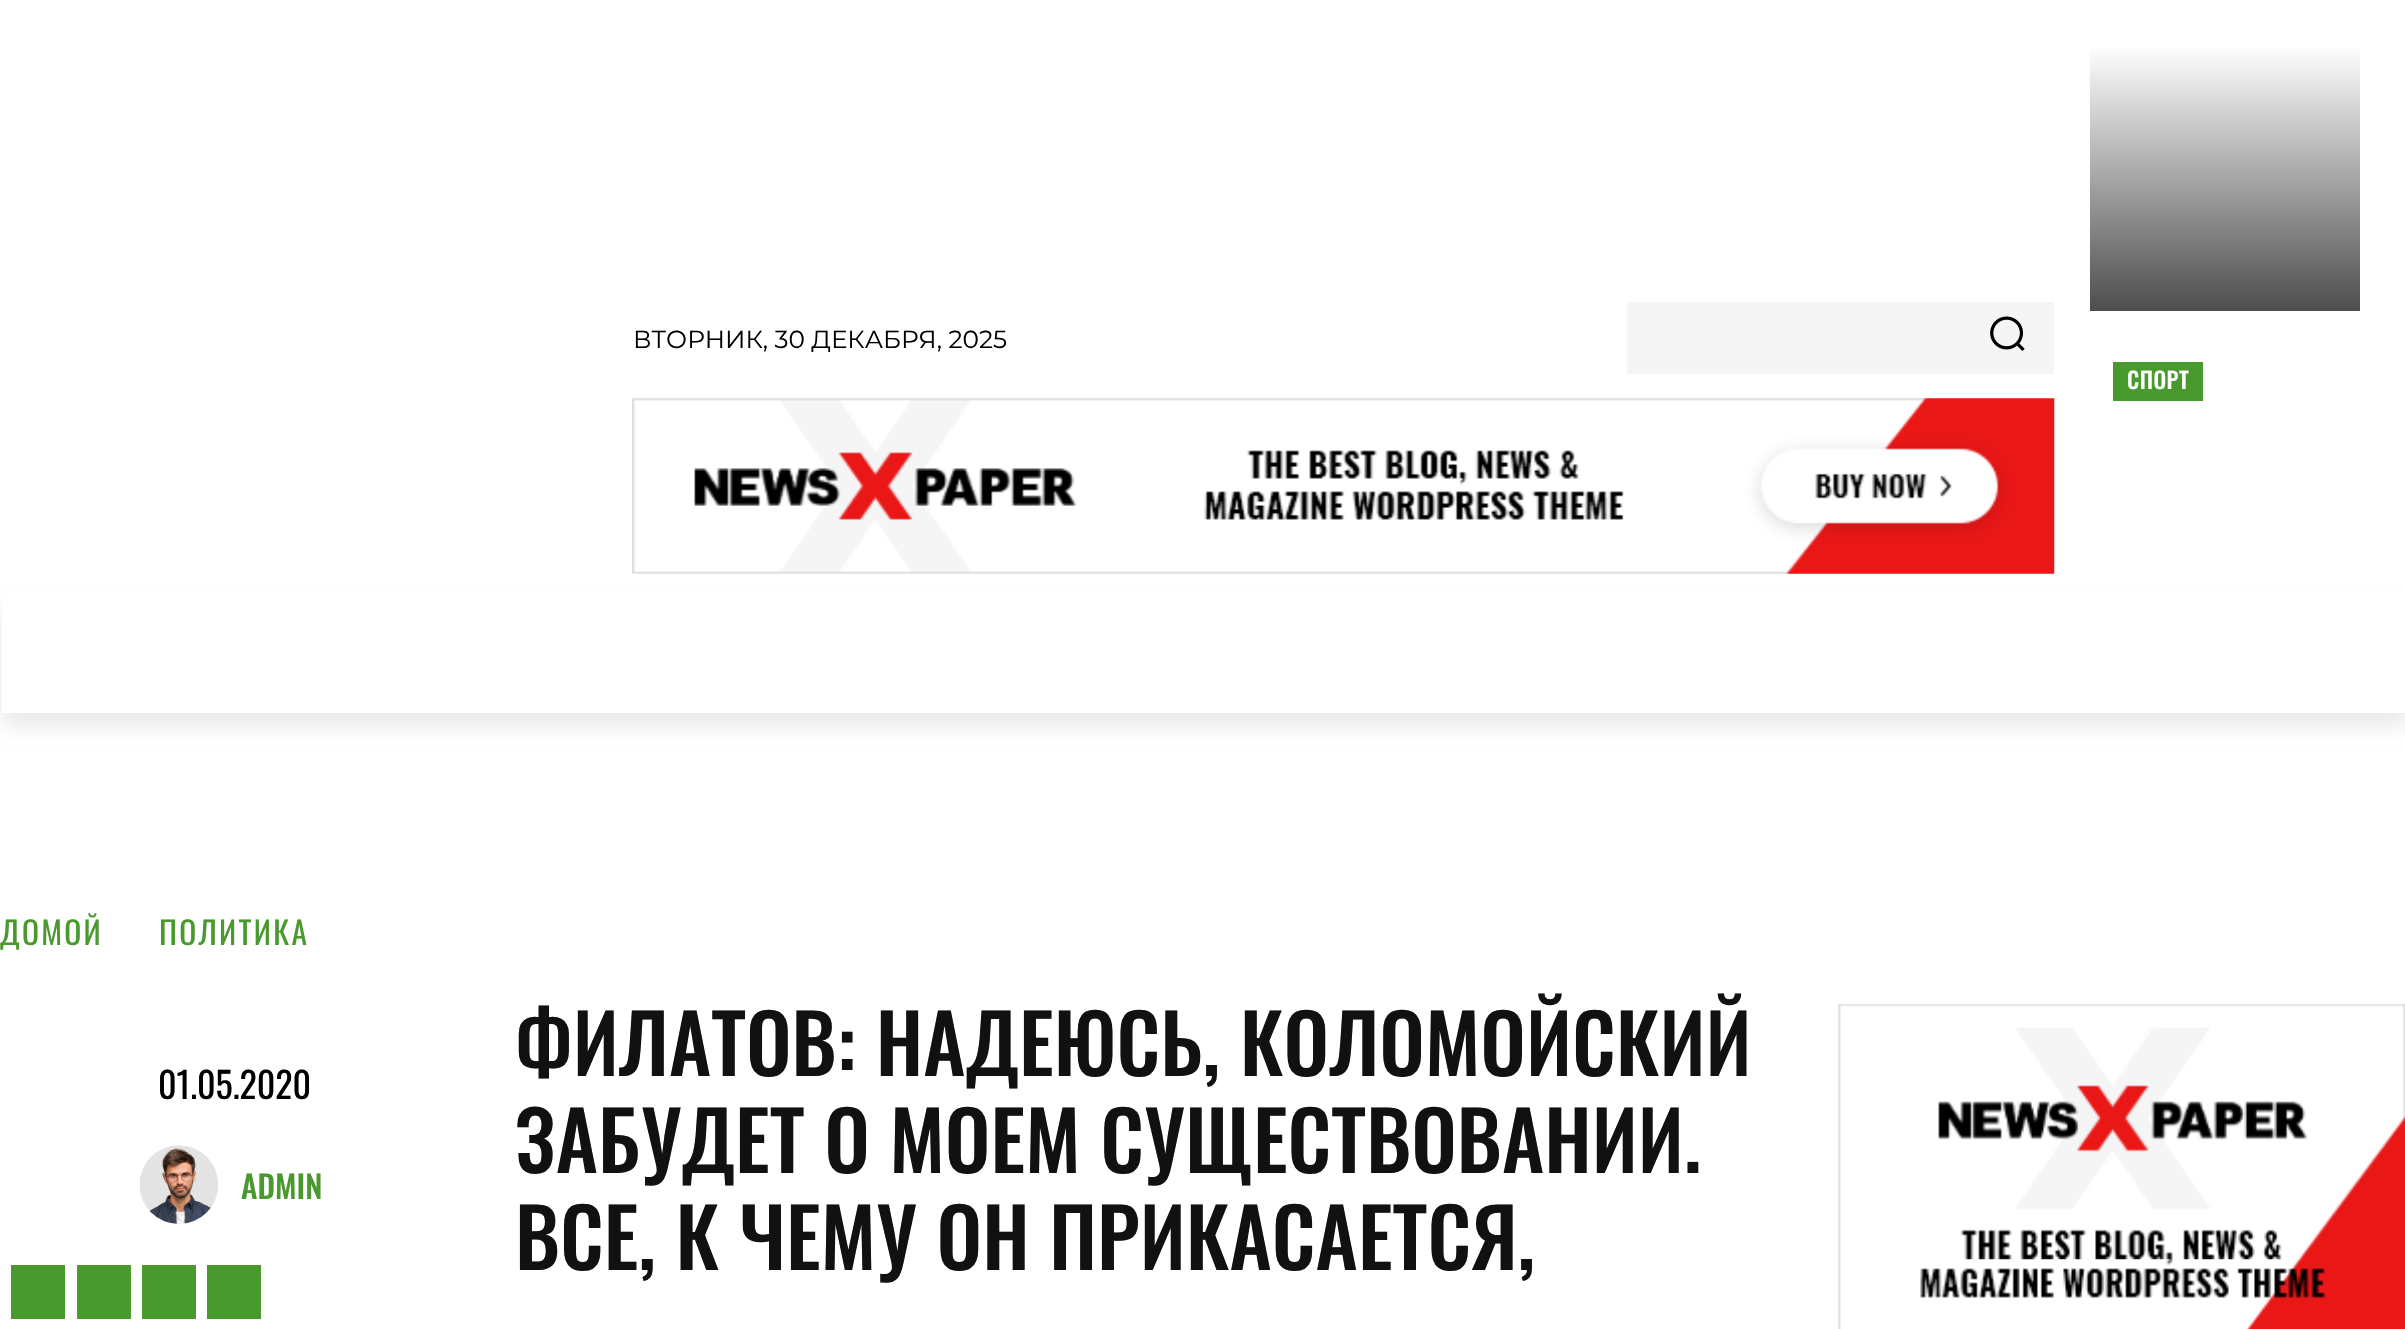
static SkFont makeFont(const char* family, int weight, float size, bool italic = false) {
  SkFontStyle style(weight, SkFontStyle::kNormal_Width,
    italic ? SkFontStyle::kItalic_Slant : SkFontStyle::kUpright_Slant);
  SkFont result(fontMgr->matchFamilyStyle(family, style), size);
  result.setSubpixel(true);
  return result;
}

static void text(SkCanvas* c, const char* s, float x, float y, const SkFont& font, SkColor color) {
  SkPaint ink(SkColor4f::FromColor(color));
  ink.setAntiAlias(true);
  c->drawString(s, x, y, font, ink);
}

static void spacedText(SkCanvas* c, const char* s, float x, float y, const SkFont& font, const SkPaint& ink, float letter, float word) {
  std::vector<SkGlyphID> glyphs(font.countText(s, strlen(s), SkTextEncoding::kUTF8));
  std::vector<float> xs(glyphs.size());
  font.textToGlyphs(s, strlen(s), SkTextEncoding::kUTF8, glyphs);
  font.getXPos(glyphs, xs, x);
  float extra = 0;
  for (size_t i = 0; i < glyphs.size(); i++) {
    xs[i] += extra;
    extra += letter + word * (glyphs[i] == font.unicharToGlyph(' '));
  }
  c->drawTextBlob(SkTextBlob::MakeFromPosHGlyphs(glyphs, xs, y, font), 0, 0, ink);
}

static void box(SkCanvas* c, float l, float t, float r, float b, SkColor color) {
  SkPaint ink(SkColor4f::FromColor(color));
  ink.setAntiAlias(true);
  c->drawRect(SkRect::MakeLTRB(l, t, r, b), ink);
}

static void picture(SkCanvas* c, const char* path, float l, float t, float r, float b) {
  auto image = SkImages::DeferredFromEncodedData(SkData::MakeFromFileName(path));
  c->drawImageRect(image, SkRect::MakeLTRB(l, t, r, b), SkSamplingOptions());
}

void draw(SkCanvas* c) {
  SkPaint paint;
  paint.setAntiAlias(true);
  c->clear(0xffffffff);
  SkFont face1 = makeFont("Montserrat", 400, 24.75f);
  text(c, "ВТОРНИК, 30 ДЕКАБРЯ, 2025", 633, 348, face1, 0xff000000);
  box(c, 1627, 302, 2054, 374, 0xfff5f5f5);
  picture(c, "img_01.png", 1990, 316, 2025, 351);
  picture(c, "img_02.png", 632, 398, 2055, 574);
  {
    const SkColor colors[] = {0xff4d4d4d, 0xffffffff};
    const float stops[] = {0, 1};
    const SkPoint ends[] = {{2225, 311}, {2225, 45}};
    paint.setShader(SkGradientShader::MakeLinear(ends, colors, stops, 2, SkTileMode::kClamp));
    paint.setAlpha(255);
  }
  c->drawRect(SkRect::MakeLTRB(2090, 49, 2360, 311), paint);
  box(c, 2113, 362, 2203, 401, 0xff49992f);
  SkFont face2 = makeFont("Oswald", 500, 22.5f);
  paint.setShader(nullptr);
  paint.setColor(0xffffffff);
  spacedText(c, "СПОРТ", 2127, 389, face2, paint, 0.5f, 0);
  c->save();
  c->clipPath(SkPathBuilder(SkPathFillType::kEvenOdd).moveTo(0, 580).lineTo(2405, 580).lineTo(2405, 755).lineTo(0, 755).close().moveTo(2, 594).lineTo(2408, 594).lineTo(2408, 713).lineTo(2, 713).close().detach(), true);
  paint.setColor(0x14000000);
  paint.setMaskFilter(SkMaskFilter::MakeBlur(kNormal_SkBlurStyle, 9));
  c->drawRect(SkRect::MakeLTRB(2, 608, 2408, 727), paint);
  paint.setMaskFilter(nullptr);
  c->restore();
  SkFont face3 = makeFont("Oswald", 400, 31.5f);
  paint.setColor(0xff49992f);
  spacedText(c, "ДОМОЙ", 0, 945, face3, paint, 2.25f, 0);
  spacedText(c, "ПОЛИТИКА", 159, 945, face3, paint, 2.25f, 0);
  SkFont face4 = makeFont("Oswald", 400, 36);
  text(c, "01.05.2020", 158, 1099, face4, 0xff000000);
  picture(c, "img_03.png", 139, 1145, 218, 1224);
  SkFont face5 = makeFont("Oswald", 500, 31.5f);
  text(c, "ADMIN", 241, 1199, face5, 0xff49992f);
  box(c, 11, 1265, 65, 1319, 0xff49992f);
  box(c, 77, 1265, 131, 1319, 0xff49992f);
  box(c, 142, 1265, 196, 1319, 0xff49992f);
  box(c, 207, 1265, 261, 1319, 0xff49992f);
  SkFont face6 = makeFont("Oswald", 500, 81);
  text(c, "ФИЛАТОВ: НАДЕЮСЬ, КОЛОМОЙСКИЙ", 515, 1076, face6, 0xff111111);
  text(c, "ЗАБУДЕТ О МОЕМ СУЩЕСТВОВАНИИ.", 515, 1173, face6, 0xff111111);
  text(c, "ВСЕ, К ЧЕМУ ОН ПРИКАСАЕТСЯ,", 515, 1270, face6, 0xff111111);
  picture(c, "img_04.png", 1838, 1004, 2405, 1329);
}
